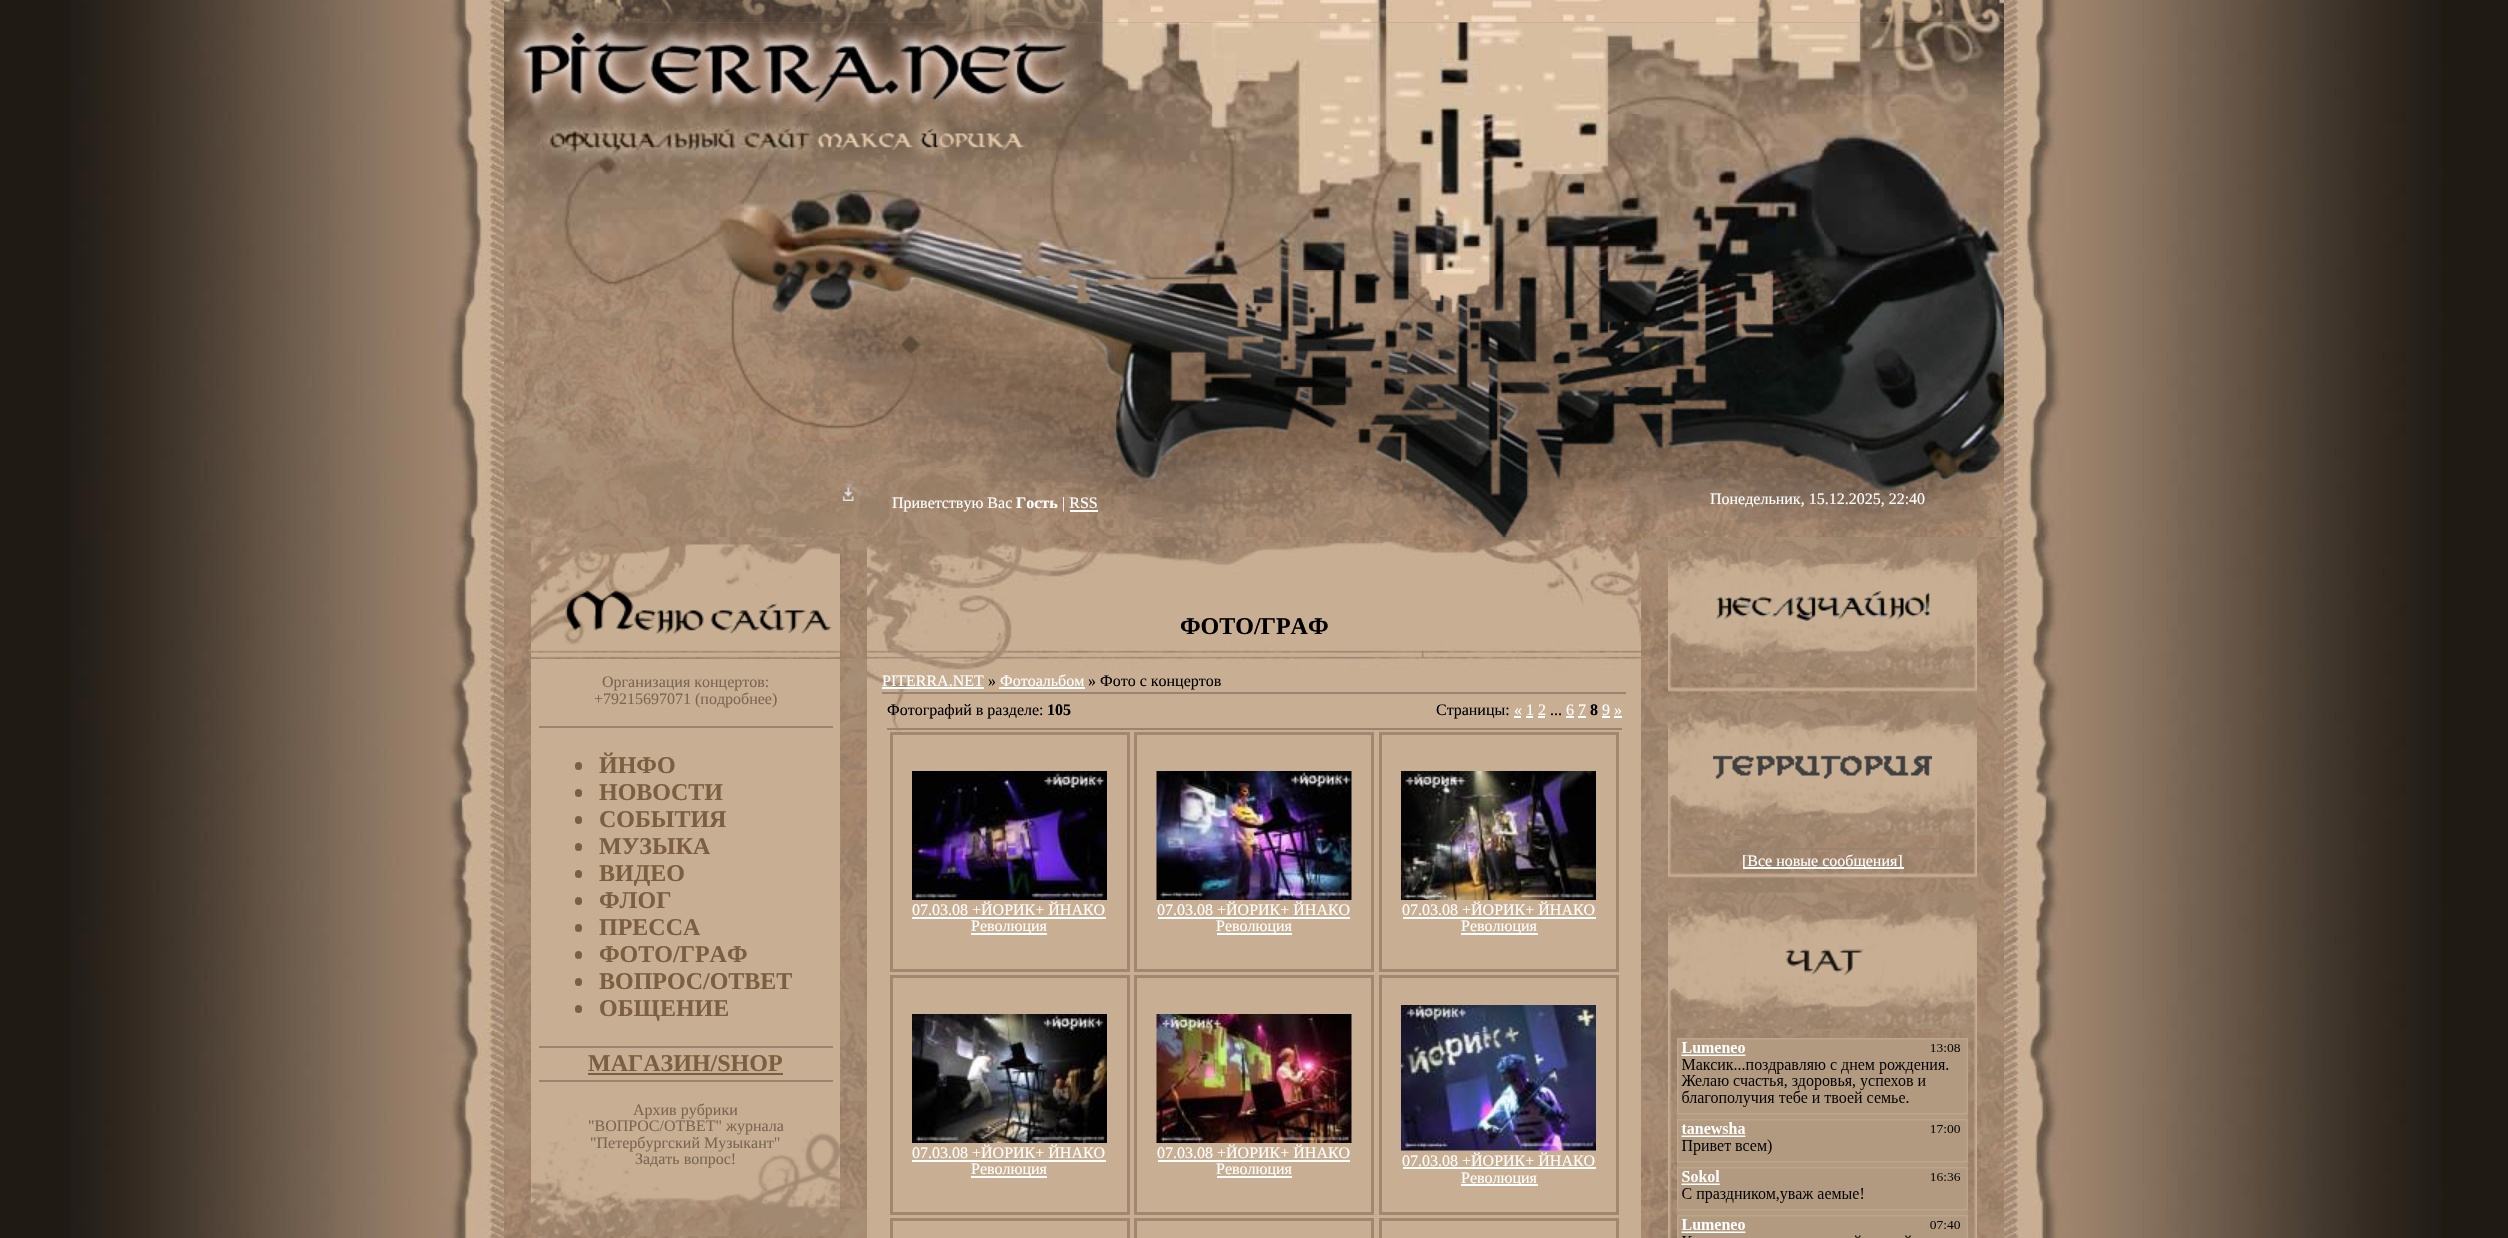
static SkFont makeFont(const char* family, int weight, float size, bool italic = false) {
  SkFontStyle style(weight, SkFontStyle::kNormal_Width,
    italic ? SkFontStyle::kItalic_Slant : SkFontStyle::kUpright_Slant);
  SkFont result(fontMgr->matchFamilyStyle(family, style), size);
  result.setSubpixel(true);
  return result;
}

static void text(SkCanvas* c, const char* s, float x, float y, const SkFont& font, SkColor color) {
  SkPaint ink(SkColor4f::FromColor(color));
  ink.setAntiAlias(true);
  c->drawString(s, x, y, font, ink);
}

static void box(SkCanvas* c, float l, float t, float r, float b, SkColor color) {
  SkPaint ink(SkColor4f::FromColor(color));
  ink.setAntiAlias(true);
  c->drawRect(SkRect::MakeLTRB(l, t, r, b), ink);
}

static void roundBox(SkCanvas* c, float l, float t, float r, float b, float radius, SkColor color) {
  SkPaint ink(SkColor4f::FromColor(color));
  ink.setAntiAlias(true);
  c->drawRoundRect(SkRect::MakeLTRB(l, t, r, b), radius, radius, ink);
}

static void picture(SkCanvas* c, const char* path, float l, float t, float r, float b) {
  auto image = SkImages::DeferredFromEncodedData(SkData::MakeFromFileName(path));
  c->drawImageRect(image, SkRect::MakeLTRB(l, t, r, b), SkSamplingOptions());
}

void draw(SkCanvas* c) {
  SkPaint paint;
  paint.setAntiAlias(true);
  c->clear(0xff1f1a14);
  picture(c, "img_01.png", 70, 0, 2442, 1238);
  picture(c, "img_02.png", 504, 22, 2004, 1238);
  picture(c, "img_03.png", 504, 0, 2004, 23);
  picture(c, "img_04.png", 504, 22, 2004, 114);
  picture(c, "img_05.png", 504, 22, 1079, 114);
  picture(c, "img_06.png", 504, 114, 2004, 270);
  picture(c, "img_07.png", 810, 114, 1034, 161);
  picture(c, "img_08.png", 504, 270, 2004, 468);
  picture(c, "img_09.png", 504, 468, 2004, 537);
  picture(c, "img_10.png", 842, 487, 854, 501);
  SkFont face1 = makeFont("Liberation Serif", 400, 16);
  text(c, "Приветствую Вас", 892, 508, face1, 0xffffffff);
  SkFont face2 = makeFont("Liberation Serif", 700, 16);
  text(c, "Гость", 1016, 508, face2, 0xffffffff);
  text(c, "| RSS", 1062, 508, face1, 0xffffffff);
  box(c, 1070, 510, 1098, 512, 0xffffffff);
  text(c, "Понедельник, 15.12.2025, 22:40", 1710, 504, face1, 0xffffffff);
  picture(c, "img_11.png", 531, 537, 840, 659);
  box(c, 531, 659, 840, 1114, 0xffc8af93);
  picture(c, "img_12.png", 531, 1114, 840, 1236);
  text(c, "Организация концертов:", 602, 687, face1, 0xff796551);
  text(c, "+79215697071 (подробнее)", 594, 704, face1, 0xff796551);
  box(c, 539, 726, 833, 728, 0xff9a846f);
  roundBox(c, 575, 762, 582, 770, 3.5f, 0xff7c5e42);
  SkFont face3 = makeFont("Liberation Serif", 700, 24);
  text(c, "ЙНФО", 599, 773, face3, 0xff7c5e42);
  roundBox(c, 575, 789, 582, 797, 3.5f, 0xff7c5e42);
  text(c, "НОВОСТИ", 599, 800, face3, 0xff7c5e42);
  roundBox(c, 575, 816, 582, 824, 3.5f, 0xff7c5e42);
  text(c, "СОБЫТИЯ", 599, 827, face3, 0xff7c5e42);
  roundBox(c, 575, 843, 582, 851, 3.5f, 0xff7c5e42);
  text(c, "МУЗЫКА", 599, 854, face3, 0xff7c5e42);
  roundBox(c, 575, 870, 582, 878, 3.5f, 0xff7c5e42);
  text(c, "ВИДЕО", 599, 881, face3, 0xff7c5e42);
  roundBox(c, 575, 897, 582, 905, 3.5f, 0xff7c5e42);
  text(c, "ФЛОГ", 599, 908, face3, 0xff7c5e42);
  roundBox(c, 575, 924, 582, 932, 3.5f, 0xff7c5e42);
  text(c, "ПРЕССА", 599, 935, face3, 0xff7c5e42);
  roundBox(c, 575, 951, 582, 959, 3.5f, 0xff7c5e42);
  text(c, "ФОТО/ГРАФ", 599, 962, face3, 0xff7c5e42);
  roundBox(c, 575, 978, 582, 986, 3.5f, 0xff7c5e42);
  text(c, "ВОПРОС/ОТВЕТ", 599, 989, face3, 0xff7c5e42);
  roundBox(c, 575, 1005, 582, 1013, 3.5f, 0xff7c5e42);
  text(c, "ОБЩЕНИЕ", 599, 1016, face3, 0xff7c5e42);
  box(c, 539, 1046, 833, 1048, 0xff9a846f);
  text(c, "МАГАЗИН/SHOP", 588, 1071, face3, 0xff7c5e42);
  box(c, 588, 1073, 783, 1075, 0xff7c5e42);
  box(c, 539, 1080, 833, 1082, 0xff9a846f);
  text(c, "Архив рубрики", 633, 1115, face1, 0xff796551);
  text(c, "\"ВОПРОС/ОТВЕТ\" журнала", 588, 1131, face1, 0xff796551);
  text(c, "\"Петербургский Музыкант\"", 590, 1148, face1, 0xff796551);
  text(c, "Задать вопрос!", 635, 1164, face1, 0xff796551);
  box(c, 867, 753, 1641, 1238, 0xffc8af93);
  picture(c, "img_13.png", 867, 537, 1641, 753);
  text(c, "ФОТО/ГРАФ", 1180, 634, face3, 0xff000000);
  text(c, "PITERRA.NET", 882, 686, face1, 0xffffffff);
  box(c, 882, 687, 984, 689, 0xffffffff);
  text(c, "»", 988, 686, face1, 0xff000000);
  text(c, "Фотоальбом", 1000, 686, face1, 0xffffffff);
  box(c, 999, 687, 1085, 689, 0xffffffff);
  text(c, "» Фото с концертов", 1088, 686, face1, 0xff000000);
  box(c, 882, 692, 1626, 694, 0xff9a846f);
  text(c, "Фотографий в разделе:", 887, 715, face1, 0xff000000);
  text(c, "105", 1047, 715, face2, 0xff000000);
  text(c, "Страницы:", 1436, 715, face1, 0xff000000);
  text(c, "« 1 2", 1514, 715, face1, 0xffffffff);
  box(c, 1514, 716, 1521, 718, 0xffffffff);
  box(c, 1526, 716, 1533, 718, 0xffffffff);
  text(c, "...", 1550, 715, face1, 0xff000000);
  box(c, 1538, 716, 1545, 718, 0xffffffff);
  box(c, 1566, 716, 1574, 718, 0xffffffff);
  text(c, "6 7", 1566, 715, face1, 0xffffffff);
  box(c, 1578, 716, 1586, 718, 0xffffffff);
  text(c, "8", 1590, 715, face2, 0xff000000);
  text(c, "9 »", 1602, 715, face1, 0xffffffff);
  box(c, 1602, 716, 1610, 718, 0xffffffff);
  box(c, 1614, 716, 1622, 718, 0xffffffff);
  box(c, 887, 728, 1622, 730, 0xff9a846f);
  box(c, 893, 735, 913, 753, 0xffc8af93);
  paint.setStyle(SkPaint::kStroke_Style);
  paint.setStrokeWidth(3);
  paint.setColor(0xffa28670);
  c->drawRect(SkRect::MakeLTRB(891.5f, 733.5f, 1128.5f, 970.5f), paint);
  picture(c, "img_14.png", 912, 771, 1107, 900);
  text(c, "07.03.08 +ЙОРИК+ ЙНАКО", 912, 915, face1, 0xffffffff);
  box(c, 912, 917, 1106, 919, 0xffffffff);
  box(c, 971, 933, 1047, 935, 0xffffffff);
  text(c, "Революция", 971, 931, face1, 0xffffffff);
  c->drawRect(SkRect::MakeLTRB(1135.5f, 733.5f, 1372.5f, 970.5f), paint);
  picture(c, "img_15.png", 1156, 771, 1352, 900);
  text(c, "07.03.08 +ЙОРИК+ ЙНАКО", 1157, 915, face1, 0xffffffff);
  box(c, 1158, 917, 1350, 919, 0xffffffff);
  box(c, 1217, 933, 1292, 935, 0xffffffff);
  text(c, "Революция", 1216, 931, face1, 0xffffffff);
  c->drawRect(SkRect::MakeLTRB(1380.5f, 733.5f, 1617.5f, 970.5f), paint);
  picture(c, "img_16.png", 1401, 771, 1596, 900);
  text(c, "07.03.08 +ЙОРИК+ ЙНАКО", 1402, 915, face1, 0xffffffff);
  box(c, 1403, 917, 1596, 919, 0xffffffff);
  box(c, 1461, 933, 1538, 935, 0xffffffff);
  text(c, "Революция", 1461, 931, face1, 0xffffffff);
  c->drawRect(SkRect::MakeLTRB(891.5f, 976.5f, 1128.5f, 1213.5f), paint);
  picture(c, "img_17.png", 912, 1014, 1107, 1143);
  text(c, "07.03.08 +ЙОРИК+ ЙНАКО", 912, 1158, face1, 0xffffffff);
  box(c, 912, 1160, 1106, 1162, 0xffffffff);
  box(c, 971, 1176, 1047, 1178, 0xffffffff);
  text(c, "Революция", 971, 1174, face1, 0xffffffff);
  c->drawRect(SkRect::MakeLTRB(1135.5f, 976.5f, 1372.5f, 1213.5f), paint);
  picture(c, "img_18.png", 1156, 1014, 1352, 1143);
  text(c, "07.03.08 +ЙОРИК+ ЙНАКО", 1157, 1158, face1, 0xffffffff);
  box(c, 1158, 1160, 1350, 1162, 0xffffffff);
  box(c, 1217, 1176, 1292, 1178, 0xffffffff);
  text(c, "Революция", 1216, 1174, face1, 0xffffffff);
  c->drawRect(SkRect::MakeLTRB(1380.5f, 976.5f, 1617.5f, 1213.5f), paint);
  picture(c, "img_19.png", 1401, 1005, 1596, 1151);
  text(c, "07.03.08 +ЙОРИК+ ЙНАКО", 1402, 1166, face1, 0xffffffff);
  box(c, 1403, 1167, 1596, 1169, 0xffffffff);
  box(c, 1461, 1184, 1538, 1186, 0xffffffff);
  text(c, "Революция", 1461, 1183, face1, 0xffffffff);
  c->drawRect(SkRect::MakeLTRB(891.5f, 1219.5f, 1128.5f, 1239.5f), paint);
  c->drawRect(SkRect::MakeLTRB(1135.5f, 1219.5f, 1372.5f, 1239.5f), paint);
  c->drawRect(SkRect::MakeLTRB(1380.5f, 1219.5f, 1617.5f, 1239.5f), paint);
  picture(c, "img_20.png", 1668, 537, 1977, 674);
  picture(c, "img_21.png", 1715, 591, 1931, 621);
  picture(c, "img_22.png", 1668, 673, 1977, 692);
  picture(c, "img_23.png", 1668, 699, 1977, 836);
  picture(c, "img_24.png", 1713, 755, 1932, 779);
  picture(c, "img_25.png", 1668, 835, 1977, 878);
  box(c, 1677, 848, 1968, 850, 0xff9a846f);
  box(c, 1743, 867, 1904, 869, 0xffffffff);
  text(c, "[Все новые сообщения]", 1742, 866, face1, 0xffffffff);
  picture(c, "img_26.png", 1668, 892, 1977, 1029);
  picture(c, "img_27.png", 1745, 949, 1882, 976);
  picture(c, "img_28.png", 1668, 1029, 1977, 1238);
  picture(c, "img_29.png", 1677, 1038, 1968, 1238);
}
